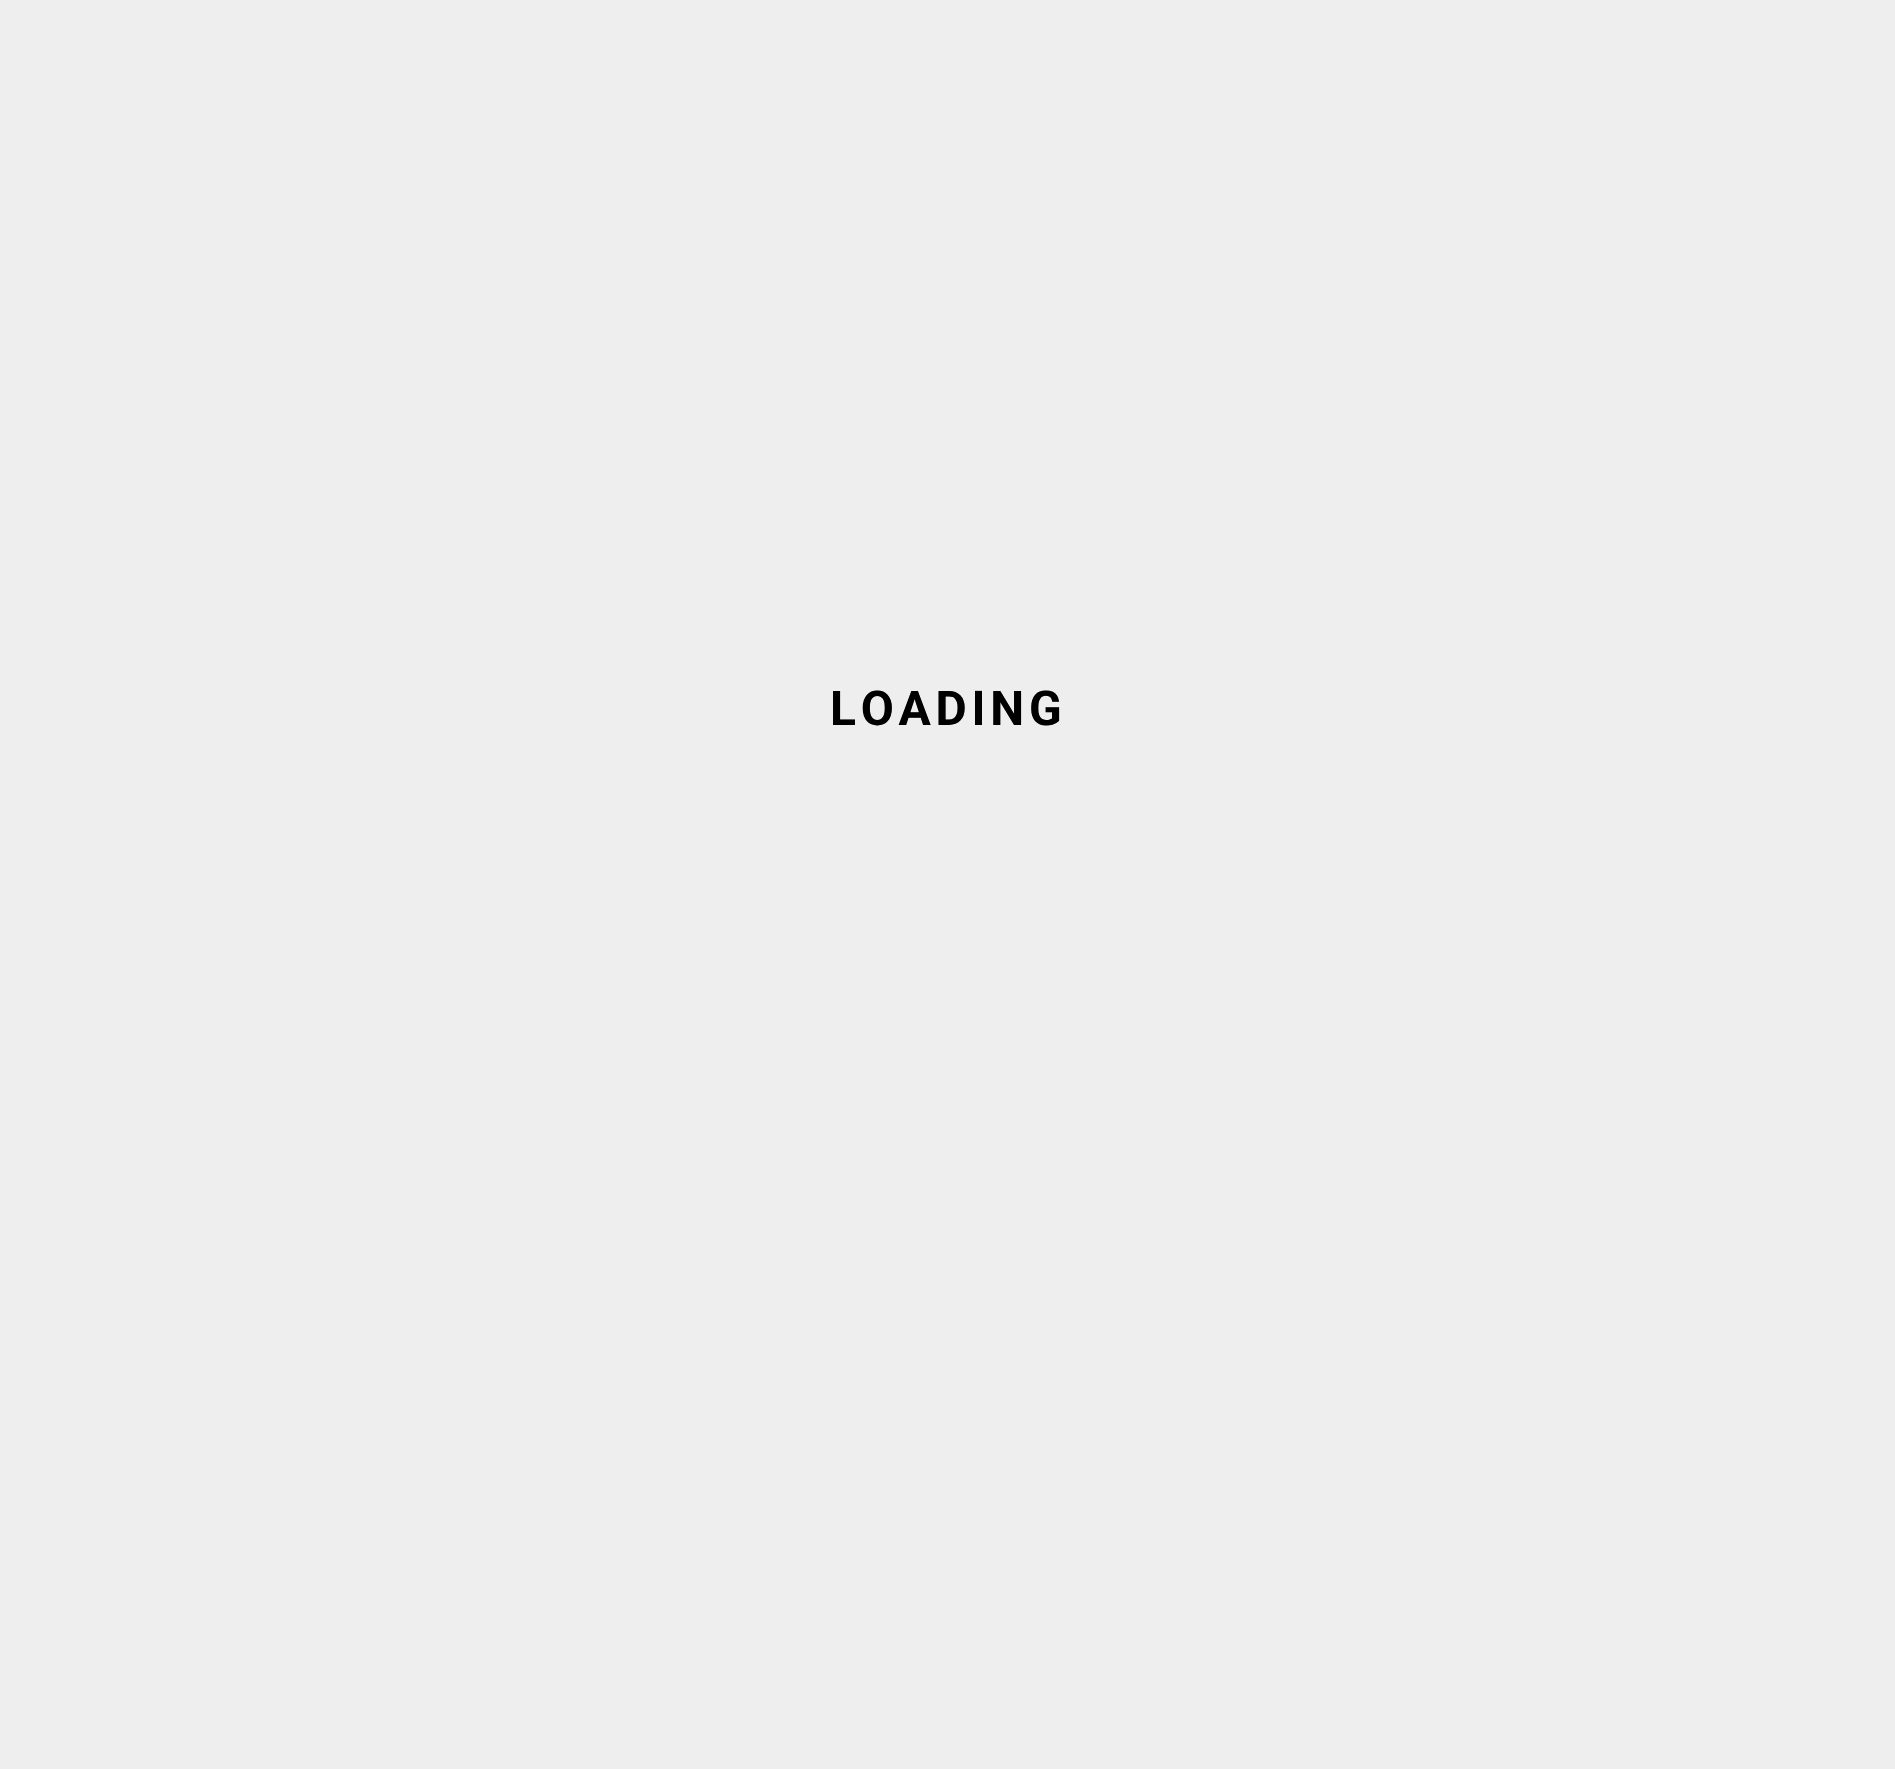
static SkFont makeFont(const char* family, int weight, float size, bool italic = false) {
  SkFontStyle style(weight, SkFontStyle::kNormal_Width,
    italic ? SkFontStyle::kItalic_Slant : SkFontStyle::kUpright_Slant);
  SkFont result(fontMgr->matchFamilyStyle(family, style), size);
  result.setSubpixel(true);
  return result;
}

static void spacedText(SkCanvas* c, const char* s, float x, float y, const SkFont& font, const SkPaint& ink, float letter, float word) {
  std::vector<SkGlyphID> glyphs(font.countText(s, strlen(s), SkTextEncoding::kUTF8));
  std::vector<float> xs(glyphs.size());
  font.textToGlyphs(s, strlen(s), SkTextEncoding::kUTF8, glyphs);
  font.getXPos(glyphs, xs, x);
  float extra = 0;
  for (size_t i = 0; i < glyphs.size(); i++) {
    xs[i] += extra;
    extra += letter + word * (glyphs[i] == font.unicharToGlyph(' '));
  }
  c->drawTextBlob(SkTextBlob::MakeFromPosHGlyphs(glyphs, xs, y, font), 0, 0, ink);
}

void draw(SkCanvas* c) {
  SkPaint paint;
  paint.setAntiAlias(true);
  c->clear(0xffeeeeee);
  SkFont face1 = makeFont("Roboto", 700, 48);
  paint.setColor(0xff000000);
  spacedText(c, "LOADING", 830, 725, face1, paint, 4.75f, 0);
}
